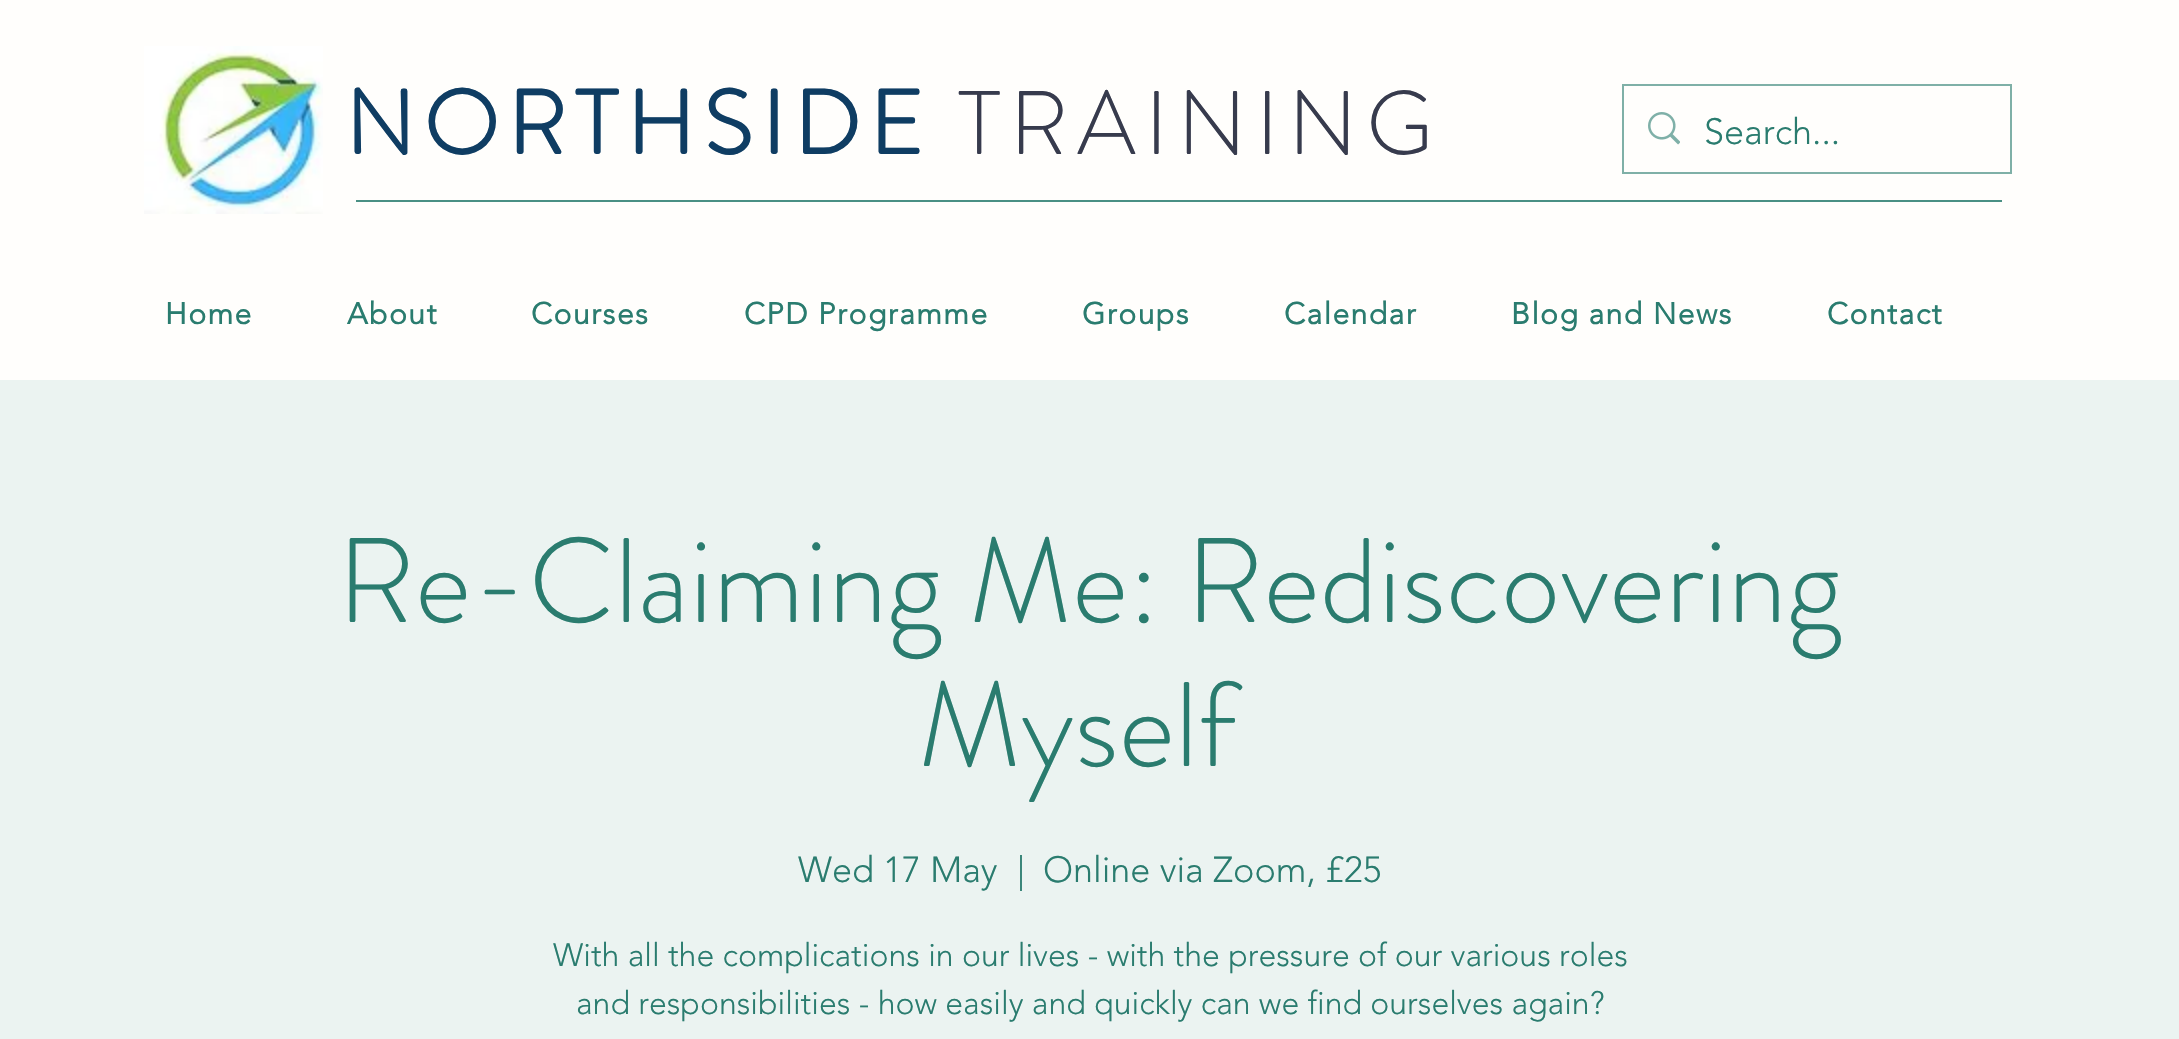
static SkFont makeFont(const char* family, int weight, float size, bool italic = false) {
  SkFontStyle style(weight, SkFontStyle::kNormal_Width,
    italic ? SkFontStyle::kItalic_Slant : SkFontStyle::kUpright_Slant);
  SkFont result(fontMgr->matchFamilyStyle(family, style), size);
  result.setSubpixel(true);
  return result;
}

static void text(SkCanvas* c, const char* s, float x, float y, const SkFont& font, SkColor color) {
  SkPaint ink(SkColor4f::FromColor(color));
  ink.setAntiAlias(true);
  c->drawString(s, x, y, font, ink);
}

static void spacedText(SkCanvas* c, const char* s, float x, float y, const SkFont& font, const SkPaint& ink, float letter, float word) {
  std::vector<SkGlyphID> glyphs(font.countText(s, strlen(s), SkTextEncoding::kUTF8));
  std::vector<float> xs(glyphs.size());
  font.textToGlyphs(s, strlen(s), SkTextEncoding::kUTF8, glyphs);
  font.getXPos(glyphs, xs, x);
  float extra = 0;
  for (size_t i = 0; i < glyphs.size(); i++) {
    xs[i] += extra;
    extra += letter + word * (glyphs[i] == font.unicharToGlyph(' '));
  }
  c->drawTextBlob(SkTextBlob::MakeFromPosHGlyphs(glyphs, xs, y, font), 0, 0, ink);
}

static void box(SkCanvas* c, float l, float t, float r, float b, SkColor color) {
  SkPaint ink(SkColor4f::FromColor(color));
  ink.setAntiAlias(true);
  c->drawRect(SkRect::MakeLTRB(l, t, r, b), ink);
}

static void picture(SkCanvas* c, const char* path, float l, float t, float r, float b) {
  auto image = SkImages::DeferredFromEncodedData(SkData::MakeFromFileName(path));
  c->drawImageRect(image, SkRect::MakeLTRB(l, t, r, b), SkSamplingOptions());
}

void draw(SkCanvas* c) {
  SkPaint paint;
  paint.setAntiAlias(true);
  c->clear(0xfffffefc);
  picture(c, "img_01.png", 144, 46, 323, 214);
  SkFont face1 = makeFont("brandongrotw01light", 700, 90);
  paint.setColor(0xff0f3d63);
  spacedText(c, "NORTHSIDE", 345, 154, face1, paint, 9, 0);
  SkFont face2 = makeFont("brandongrotw01light", 300, 90);
  paint.setColor(0xff373b4d);
  spacedText(c, "TRAINING", 958, 154, face2, paint, 9, 0);
  paint.setStyle(SkPaint::kStroke_Style);
  paint.setStrokeWidth(2);
  paint.setColor(0xff7fb0a7);
  c->drawRect(SkRect::MakeLTRB(1623, 85, 2011, 173), paint);
  picture(c, "img_02.png", 1648, 112, 1680, 145);
  SkFont face3 = makeFont("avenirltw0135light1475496", 300, 36);
  text(c, "Search...", 1704, 144, face3, 0xff2a7c6f);
  box(c, 356, 200, 2002, 202, 0xff4a9084);
  SkFont face4 = makeFont("avenirltw0135light1475496", 700, 30);
  paint.setStyle(SkPaint::kFill_Style);
  paint.setColor(0xff2a7c6f);
  spacedText(c, "Home", 165, 324, face4, paint, 1.5f, 0);
  spacedText(c, "About", 347, 324, face4, paint, 1.5f, 0);
  spacedText(c, "Courses", 531, 324, face4, paint, 1.5f, 0);
  spacedText(c, "CPD Programme", 744, 324, face4, paint, 1.5f, 0);
  spacedText(c, "Groups", 1082, 324, face4, paint, 1.5f, 0);
  spacedText(c, "Calendar", 1284, 324, face4, paint, 1.5f, 0);
  spacedText(c, "Blog and News", 1511, 324, face4, paint, 1.5f, 0);
  spacedText(c, "Contact", 1827, 324, face4, paint, 1.5f, 0);
  box(c, 0, 380, 2179, 1039, 0xffebf3f1);
  SkFont face5 = makeFont("brandongrotw01light", 300, 120);
  text(c, "Re-Claiming Me: Rediscovering", 337, 622, face5, 0xff2a7c6f);
  text(c, "Myself", 918, 766, face5, 0xff2a7c6f);
  text(c, "Wed 17 May", 798, 882, face3, 0xff2a7c6f);
  text(c, "|", 1017, 882, face3, 0xff2a7c6f);
  text(c, "Online via Zoom, £25", 1043, 882, face3, 0xff2a7c6f);
  SkFont face6 = makeFont("avenirltw0135light1475496", 300, 32);
  text(c, "With all the complications in our lives - with the pressure of our various roles", 553, 966, face6, 0xff2a7c6f);
  text(c, "and responsibilities - how easily and quickly can we find ourselves again?", 576, 1014, face6, 0xff2a7c6f);
}
